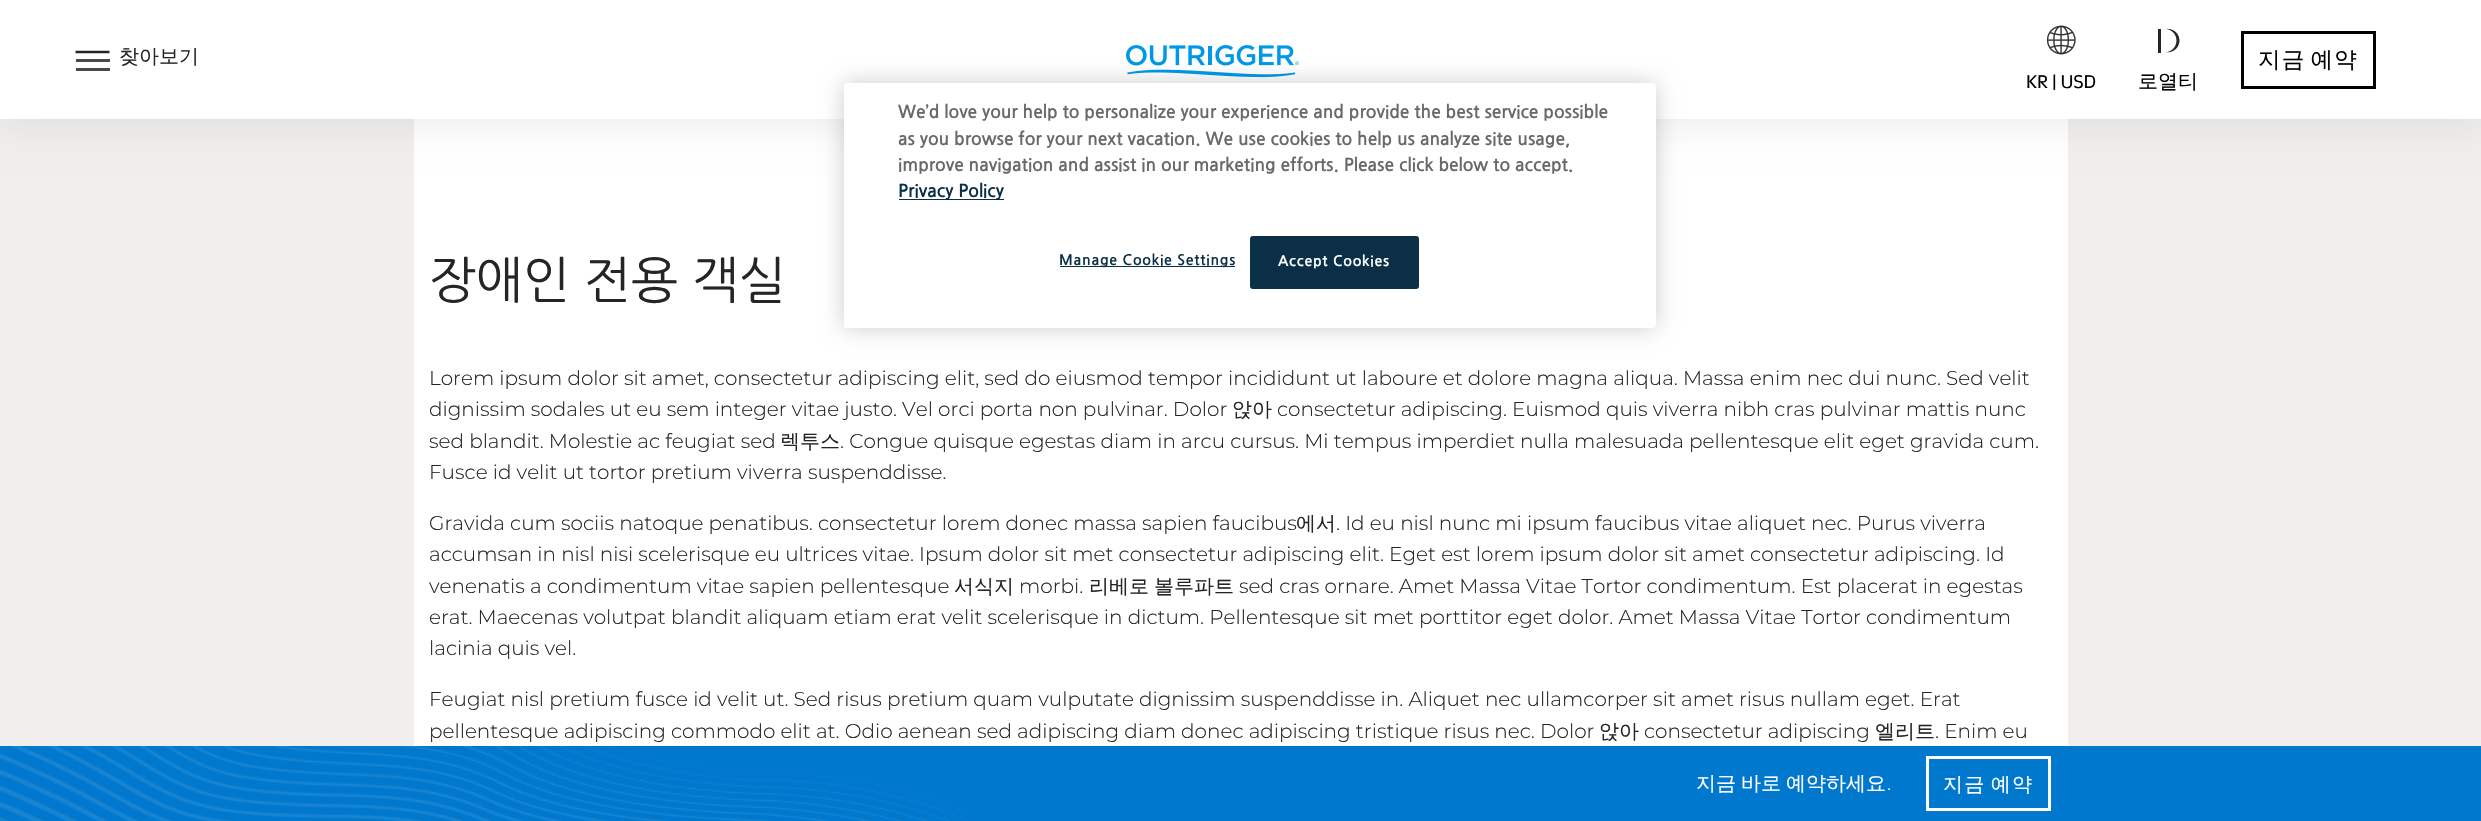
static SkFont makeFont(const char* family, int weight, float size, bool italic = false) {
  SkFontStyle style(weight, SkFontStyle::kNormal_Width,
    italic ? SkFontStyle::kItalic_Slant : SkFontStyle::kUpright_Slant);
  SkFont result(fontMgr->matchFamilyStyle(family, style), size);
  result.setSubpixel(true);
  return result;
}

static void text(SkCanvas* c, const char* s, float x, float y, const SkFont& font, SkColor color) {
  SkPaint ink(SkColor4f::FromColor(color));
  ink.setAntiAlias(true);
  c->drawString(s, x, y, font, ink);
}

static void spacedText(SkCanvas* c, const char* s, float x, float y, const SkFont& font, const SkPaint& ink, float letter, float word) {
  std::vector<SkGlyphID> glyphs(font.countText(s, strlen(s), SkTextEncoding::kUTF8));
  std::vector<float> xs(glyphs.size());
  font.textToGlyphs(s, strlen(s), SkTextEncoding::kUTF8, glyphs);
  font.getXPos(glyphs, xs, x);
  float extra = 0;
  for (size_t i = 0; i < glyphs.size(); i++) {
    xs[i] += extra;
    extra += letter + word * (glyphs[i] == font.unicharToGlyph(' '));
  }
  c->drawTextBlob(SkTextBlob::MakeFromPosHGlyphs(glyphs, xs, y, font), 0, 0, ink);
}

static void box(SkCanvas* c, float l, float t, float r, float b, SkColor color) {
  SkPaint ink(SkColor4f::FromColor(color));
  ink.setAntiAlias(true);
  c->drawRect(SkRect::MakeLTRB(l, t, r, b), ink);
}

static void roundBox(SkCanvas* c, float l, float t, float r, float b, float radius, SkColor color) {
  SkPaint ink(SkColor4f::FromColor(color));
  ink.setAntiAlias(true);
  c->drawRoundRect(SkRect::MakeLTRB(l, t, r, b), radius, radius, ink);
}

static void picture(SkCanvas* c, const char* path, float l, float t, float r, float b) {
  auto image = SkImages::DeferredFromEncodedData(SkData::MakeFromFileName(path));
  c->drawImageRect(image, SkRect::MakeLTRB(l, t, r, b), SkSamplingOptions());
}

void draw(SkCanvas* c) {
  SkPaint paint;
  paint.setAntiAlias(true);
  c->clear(0xfff1efed);
  box(c, 414, 119, 2068, 746, 0xffffffff);
  paint.setColor(0x0f000000);
  paint.setMaskFilter(SkMaskFilter::MakeBlur(kNormal_SkBlurStyle, 15.5f));
  c->drawRect(SkRect::MakeLTRB(1, 11, 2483, 130), paint);
  paint.setMaskFilter(nullptr);
  box(c, 0, 0, 2481, 119, 0xffffffff);
  paint.setStyle(SkPaint::kStroke_Style);
  paint.setStrokeWidth(2.5f);
  paint.setColor(0xff252525);
  c->drawPath(SkPathBuilder().moveTo(75.5f, 52).lineTo(109.5f, 52).detach(), paint);
  SkFont face1 = makeFont("WenQuanYi Zen Hei", 500, 20);
  text(c, "찾아보기", 119, 63, face1, 0xff252525);
  box(c, 76, 59, 110, 62, 0xff494949);
  box(c, 76, 68, 110, 71, 0xff494949);
  picture(c, "img_01.png", 1126, 45, 1299, 78);
  paint.setStrokeWidth(3);
  paint.setColor(0xff000000);
  c->drawRect(SkRect::MakeLTRB(2242.5f, 32.5f, 2374.5f, 87.5f), paint);
  SkFont face2 = makeFont("WenQuanYi Zen Hei", 500, 22.5f);
  paint.setStyle(SkPaint::kFill_Style);
  spacedText(c, "지금 예약", 2258, 67, face2, paint, 1.25f, -3);
  picture(c, "img_02.png", 2046, 25, 2076, 55);
  SkFont face3 = makeFont("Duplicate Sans", 400, 20);
  text(c, "KR | USD", 2026, 88, face3, 0xff000000);
  picture(c, "img_03.png", 2158, 28, 2180, 53);
  text(c, "로열티", 2138, 88, face1, 0xff000000);
  SkFont face4 = makeFont("NanumGothic", 400, 50);
  text(c, "장애인 전용 객실", 429, 298, face4, 0xff252525);
  SkFont face5 = makeFont("Montserrat", 300, 20);
  text(c, "Lorem ipsum dolor sit amet, consectetur adipiscing elit, sed do eiusmod tempor incididunt ut laboure et dolore magna aliqua. Massa enim nec dui nunc. Sed velit", 429, 385, face5, 0xff252525);
  text(c, "dignissim sodales ut eu sem integer vitae justo. Vel orci porta non pulvinar. Dolor", 429, 416, face5, 0xff252525);
  text(c, "앉아", 1232, 416, face1, 0xff252525);
  text(c, "consectetur adipiscing. Euismod quis viverra nibh cras pulvinar mattis nunc", 1277, 416, face5, 0xff252525);
  text(c, "sed blandit. Molestie ac feugiat sed", 429, 448, face5, 0xff252525);
  text(c, "렉투스", 780, 448, face1, 0xff252525);
  text(c, ". Congue quisque egestas diam in arcu cursus. Mi tempus imperdiet nulla malesuada pellentesque elit eget gravida cum.", 840, 448, face5, 0xff252525);
  text(c, "Fusce id velit ut tortor pretium viverra suspenddisse.", 429, 479, face5, 0xff252525);
  text(c, "Gravida cum sociis natoque penatibus. consectetur lorem donec massa sapien faucibus", 429, 530, face5, 0xff252525);
  text(c, "에서", 1296, 530, face1, 0xff252525);
  text(c, ". Id eu nisl nunc mi ipsum faucibus vitae aliquet nec. Purus viverra", 1336, 530, face5, 0xff252525);
  text(c, "accumsan in nisl nisi scelerisque eu ultrices vitae. Ipsum dolor sit met consectetur adipiscing elit. Eget est lorem ipsum dolor sit amet consectetur adipiscing. Id", 429, 561, face5, 0xff252525);
  text(c, "venenatis a condimentum vitae sapien pellentesque", 429, 593, face5, 0xff252525);
  text(c, "서식지", 954, 593, face1, 0xff252525);
  text(c, "morbi.", 1019, 593, face5, 0xff252525);
  text(c, "리베로", 1089, 593, face1, 0xff252525);
  text(c, "볼루파트", 1154, 593, face1, 0xff252525);
  text(c, "sed cras ornare. Amet Massa Vitae Tortor condimentum. Est placerat in egestas", 1239, 593, face5, 0xff252525);
  text(c, "erat. Maecenas volutpat blandit aliquam etiam erat velit scelerisque in dictum. Pellentesque sit met porttitor eget dolor. Amet Massa Vitae Tortor condimentum", 429, 624, face5, 0xff252525);
  text(c, "lacinia quis vel.", 429, 655, face5, 0xff252525);
  text(c, "Feugiat nisl pretium fusce id velit ut. Sed risus pretium quam vulputate dignissim suspenddisse in. Aliquet nec ullamcorper sit amet risus nullam eget. Erat", 429, 706, face5, 0xff252525);
  text(c, "pellentesque adipiscing commodo elit at. Odio aenean sed adipiscing diam donec adipiscing tristique risus nec. Dolor", 429, 738, face5, 0xff252525);
  text(c, "앉아", 1599, 738, face1, 0xff252525);
  text(c, "consectetur adipiscing", 1644, 738, face5, 0xff252525);
  text(c, "엘리트", 1875, 738, face1, 0xff252525);
  text(c, ". Enim eu", 1935, 738, face5, 0xff252525);
  box(c, 0, 746, 2481, 821, 0xff0078cd);
  picture(c, "img_04.png", 0, 746, 967, 821);
  paint.setColor(0xffffffff);
  spacedText(c, "지금 바로 예약하세요", 1696, 790, face1, paint, 0, -1);
  text(c, ".", 1887, 790, face5, 0xffffffff);
  paint.setStyle(SkPaint::kStroke_Style);
  c->drawRect(SkRect::MakeLTRB(1927.5f, 757.5f, 2049.5f, 809.5f), paint);
  paint.setStyle(SkPaint::kFill_Style);
  spacedText(c, "지금 예약", 1943, 791, face1, paint, 1.25f, -2);
  paint.setColor(0x33000000);
  paint.setMaskFilter(SkMaskFilter::MakeBlur(kNormal_SkBlurStyle, 11));
  c->drawRoundRect(SkRect::MakeLTRB(844, 83, 1656, 328), 3, 3, paint);
  paint.setMaskFilter(nullptr);
  roundBox(c, 844, 83, 1656, 328, 3, 0xffffffff);
  SkFont face6 = makeFont("NanumGothic", 700, 17.5f);
  text(c, "We’d love your help to personalize your experience and provide the best service possible", 898, 118, face6, 0xff696969);
  text(c, "as you browse for your next vacation. We use cookies to help us analyze site usage,", 898, 145, face6, 0xff696969);
  text(c, "improve navigation and assist in our marketing efforts. Please click below to accept.", 898, 171, face6, 0xff696969);
  box(c, 899, 199, 1004, 200, 0xff0b2f47);
  text(c, "Privacy Policy", 898, 197, face6, 0xff0b2f47);
  box(c, 1060, 266, 1235, 267, 0xff0b2f47);
  SkFont face7 = makeFont("NanumGothic", 700, 14.25f);
  paint.setColor(0xff0b2f47);
  spacedText(c, "Manage Cookie Settings", 1059, 265, face7, paint, 0.75f, 0);
  c->drawRoundRect(SkRect::MakeLTRB(1250.5f, 236.5f, 1418.5f, 288.5f), 2, 2, paint);
  paint.setStyle(SkPaint::kStroke_Style);
  paint.setStrokeWidth(1);
  c->drawRoundRect(SkRect::MakeLTRB(1250.5f, 236.5f, 1418.5f, 288.5f), 2, 2, paint);
  paint.setStyle(SkPaint::kFill_Style);
  paint.setColor(0xffffffff);
  spacedText(c, "Accept Cookies", 1278, 266, face7, paint, 0.75f, 0);
}
